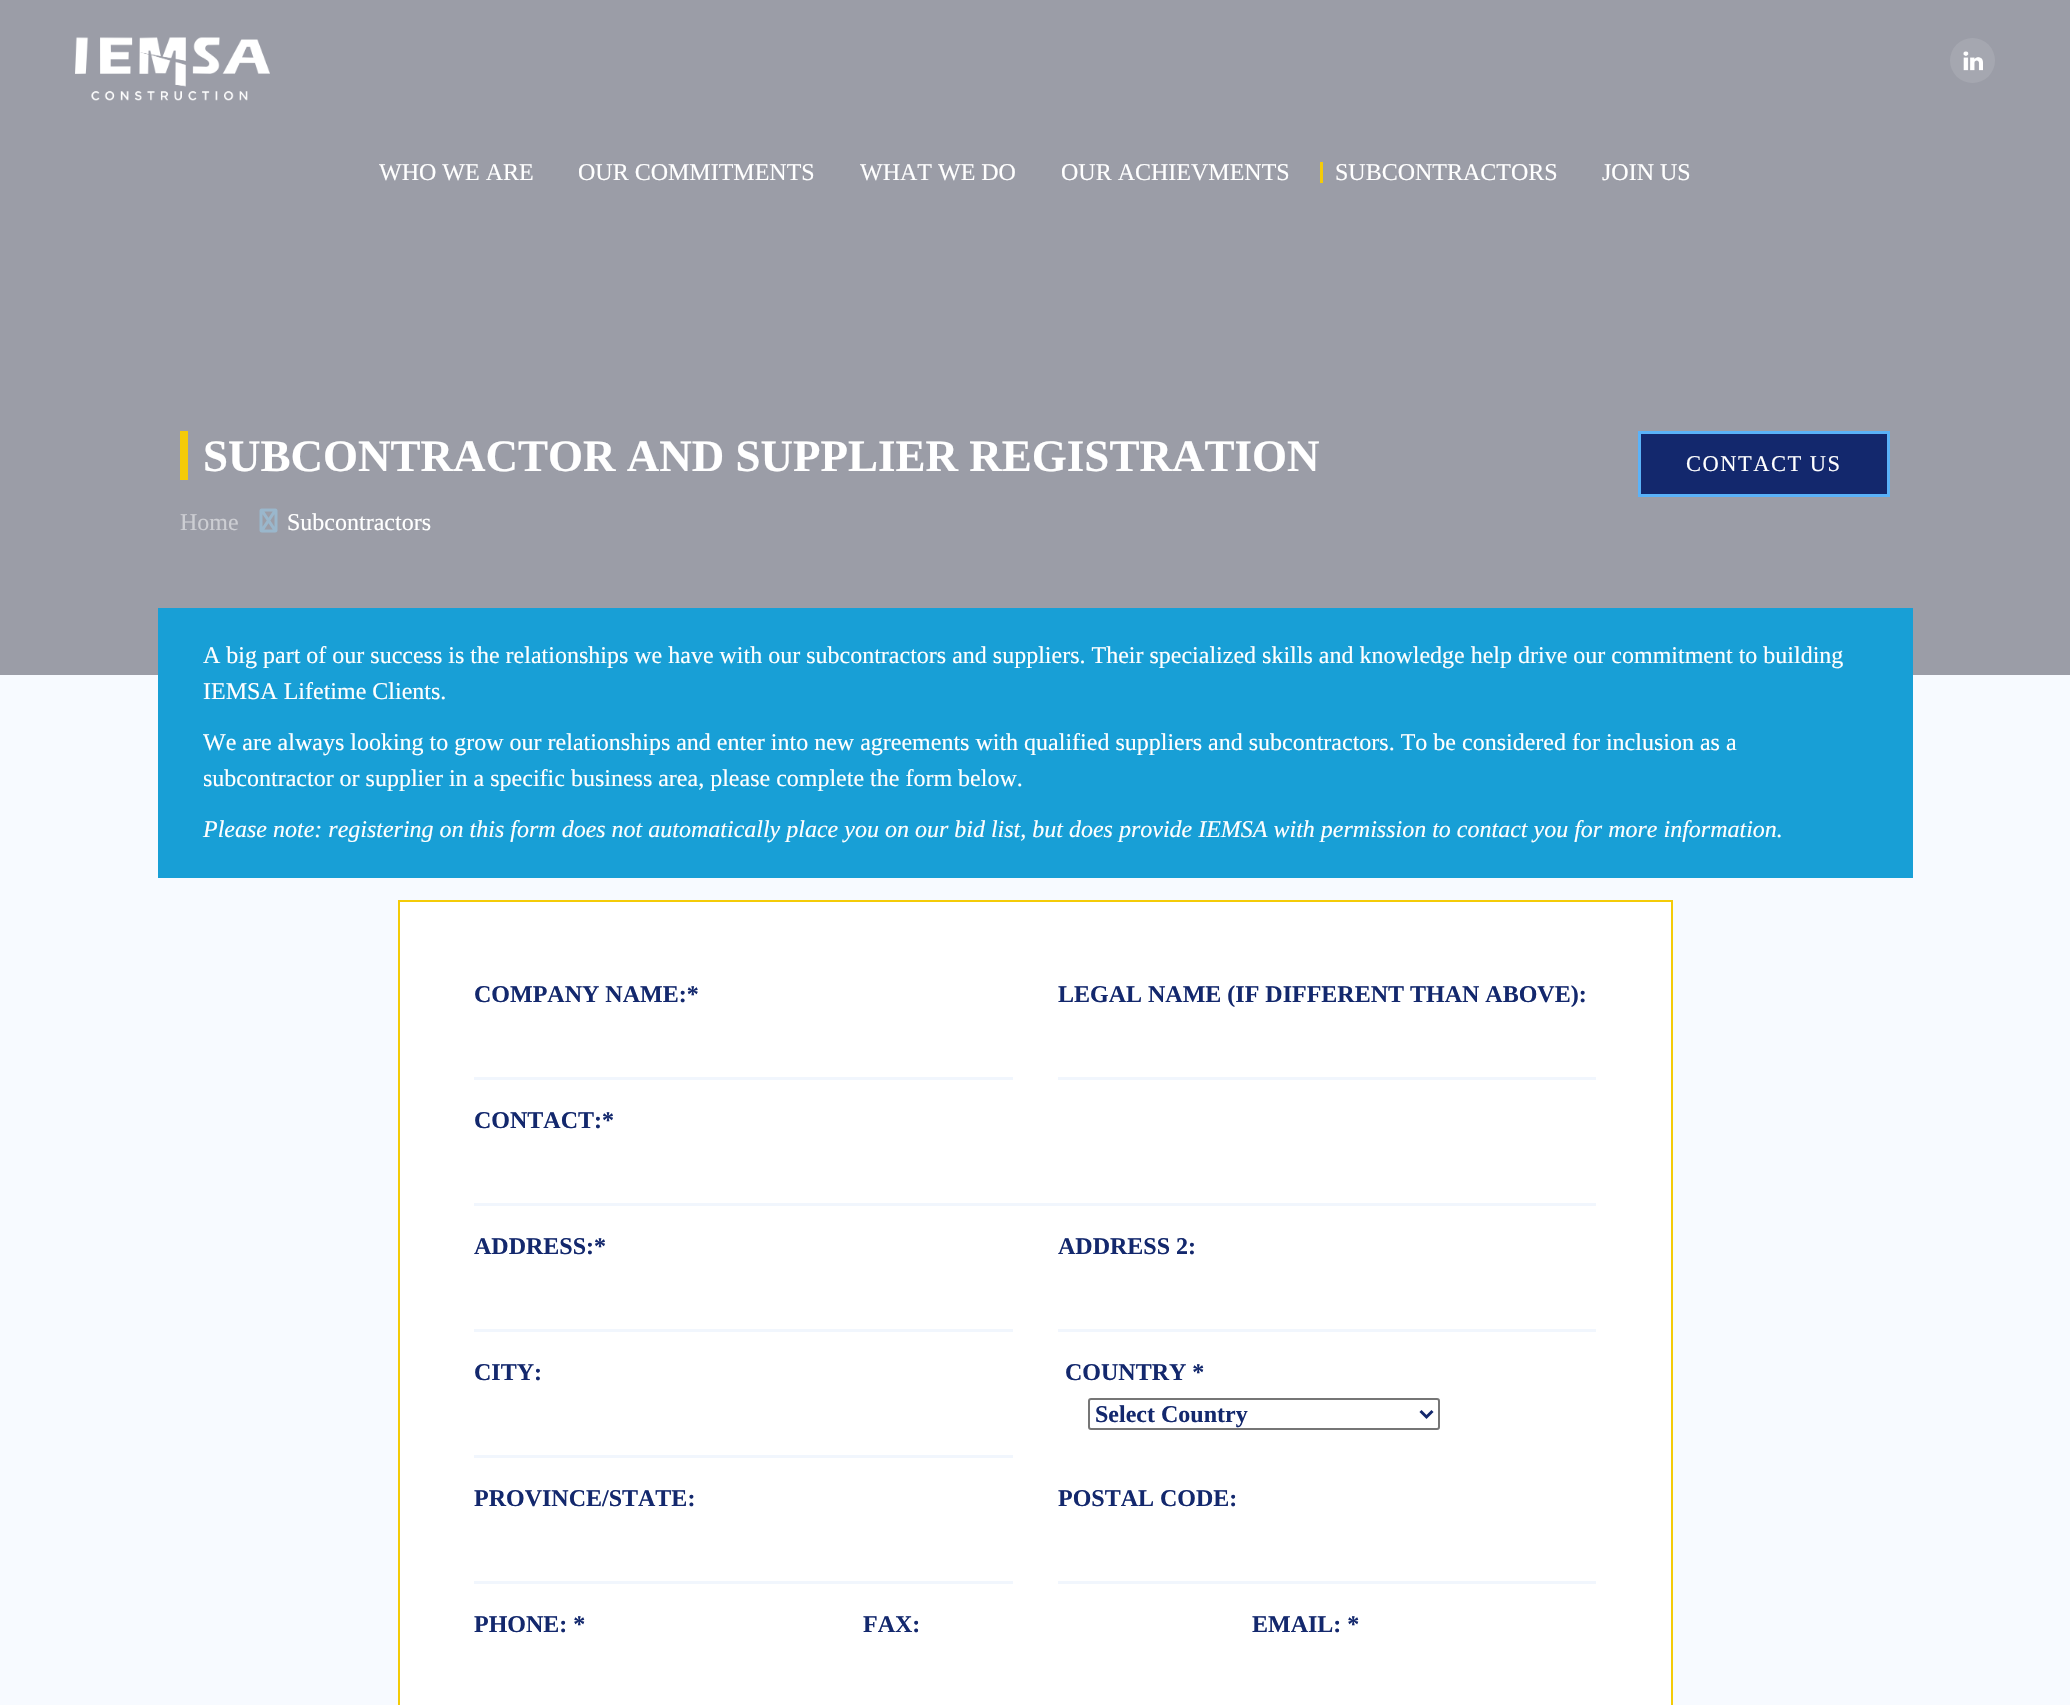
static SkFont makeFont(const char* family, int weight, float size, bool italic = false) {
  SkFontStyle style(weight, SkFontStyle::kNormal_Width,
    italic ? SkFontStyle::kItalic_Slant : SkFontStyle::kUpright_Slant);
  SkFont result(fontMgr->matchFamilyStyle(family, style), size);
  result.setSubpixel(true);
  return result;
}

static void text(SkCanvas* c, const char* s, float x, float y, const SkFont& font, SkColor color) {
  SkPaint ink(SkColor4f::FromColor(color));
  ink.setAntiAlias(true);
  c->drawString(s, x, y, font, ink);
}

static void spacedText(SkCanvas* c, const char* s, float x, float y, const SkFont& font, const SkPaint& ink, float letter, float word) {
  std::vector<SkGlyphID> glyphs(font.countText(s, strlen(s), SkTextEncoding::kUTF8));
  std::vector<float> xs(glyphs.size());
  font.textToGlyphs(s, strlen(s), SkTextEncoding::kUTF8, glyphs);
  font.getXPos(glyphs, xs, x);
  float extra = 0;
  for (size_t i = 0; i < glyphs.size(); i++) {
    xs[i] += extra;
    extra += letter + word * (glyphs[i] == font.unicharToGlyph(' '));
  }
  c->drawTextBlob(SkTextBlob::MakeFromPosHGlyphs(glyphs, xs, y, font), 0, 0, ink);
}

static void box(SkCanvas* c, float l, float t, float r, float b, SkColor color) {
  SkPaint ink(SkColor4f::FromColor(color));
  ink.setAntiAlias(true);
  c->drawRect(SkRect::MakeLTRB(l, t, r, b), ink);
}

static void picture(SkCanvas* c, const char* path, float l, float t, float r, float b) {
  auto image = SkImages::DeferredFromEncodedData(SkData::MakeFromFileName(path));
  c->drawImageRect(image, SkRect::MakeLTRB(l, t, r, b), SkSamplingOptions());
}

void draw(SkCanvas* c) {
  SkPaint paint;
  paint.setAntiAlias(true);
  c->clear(0xfff7faff);
  box(c, 0, 0, 2070, 675, 0xff9b9da7);
  picture(c, "img_01.png", 75, 37, 270, 101);
  paint.setColor(0xffa5a7b0);
  c->drawCircle(1972.5f, 60.5f, 22.5f, paint);
  picture(c, "img_02.png", 1963, 51, 1983, 71);
  SkFont face1 = makeFont("Liberation Serif", 400, 24);
  text(c, "WHO WE ARE", 379, 180, face1, 0xffffffff);
  text(c, "OUR COMMITMENTS", 578, 180, face1, 0xffffffff);
  text(c, "WHAT WE DO", 860, 180, face1, 0xffffffff);
  text(c, "OUR ACHIEVMENTS", 1061, 180, face1, 0xffffffff);
  box(c, 1320, 162, 1323, 183, 0xfff4cb08);
  text(c, "SUBCONTRACTORS", 1335, 180, face1, 0xffffffff);
  text(c, "JOIN US", 1602, 180, face1, 0xffffffff);
  box(c, 180, 431, 188, 480, 0xfff4cb08);
  SkFont face2 = makeFont("Liberation Serif", 700, 45);
  text(c, "SUBCONTRACTOR AND SUPPLIER REGISTRATION", 203, 471, face2, 0xffffffff);
  text(c, "Home", 180, 530, face1, 0xffcdced3);
  picture(c, "img_03.png", 259, 508, 278, 533);
  text(c, "Subcontractors", 287, 530, face1, 0xffffffff);
  paint.setColor(0xff13286d);
  c->drawRect(SkRect::MakeLTRB(1639.5f, 432.5f, 1888.5f, 495.5f), paint);
  paint.setStyle(SkPaint::kStroke_Style);
  paint.setStrokeWidth(3);
  paint.setColor(0xff5ab2f9);
  c->drawRect(SkRect::MakeLTRB(1639.5f, 432.5f, 1888.5f, 495.5f), paint);
  SkFont face3 = makeFont("Liberation Serif", 400, 22.5f);
  paint.setStyle(SkPaint::kFill_Style);
  paint.setColor(0xffffffff);
  spacedText(c, "CONTACT US", 1686, 471, face3, paint, 1.5f, 0);
  box(c, 158, 608, 1913, 878, 0xff189fd6);
  text(c, "A big part of our success is the relationships we have with our subcontractors and suppliers. Their specialized skills and knowledge help drive our commitment to building", 203, 663, face1, 0xffffffff);
  text(c, "IEMSA Lifetime Clients.", 203, 699, face1, 0xffffffff);
  text(c, "We are always looking to grow our relationships and enter into new agreements with qualified suppliers and subcontractors. To be considered for inclusion as a", 203, 750, face1, 0xffffffff);
  text(c, "subcontractor or supplier in a specific business area, please complete the form below.", 203, 786, face1, 0xffffffff);
  SkFont face4 = makeFont("Liberation Serif", 400, 24, true);
  text(c, "Please note: registering on this form does not automatically place you on our bid list, but does provide IEMSA with permission to contact you for more information.", 203, 837, face4, 0xffffffff);
  c->drawRect(SkRect::MakeLTRB(399, 901, 1672, 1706), paint);
  paint.setStyle(SkPaint::kStroke_Style);
  paint.setStrokeWidth(2);
  paint.setColor(0xfff4cb08);
  c->drawRect(SkRect::MakeLTRB(399, 901, 1672, 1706), paint);
  SkFont face5 = makeFont("Liberation Serif", 700, 24);
  text(c, "COMPANY NAME:*", 474, 1002, face5, 0xff13286d);
  box(c, 474, 1077, 1013, 1080, 0xfff1f6fd);
  text(c, "LEGAL NAME (IF DIFFERENT THAN ABOVE):", 1058, 1002, face5, 0xff13286d);
  box(c, 1058, 1077, 1596, 1080, 0xfff1f6fd);
  text(c, "CONTACT:*", 474, 1128, face5, 0xff13286d);
  box(c, 474, 1203, 1596, 1206, 0xfff1f6fd);
  text(c, "ADDRESS:*", 474, 1254, face5, 0xff13286d);
  box(c, 474, 1329, 1013, 1332, 0xfff1f6fd);
  text(c, "ADDRESS 2:", 1058, 1254, face5, 0xff13286d);
  box(c, 1058, 1329, 1596, 1332, 0xfff1f6fd);
  text(c, "CITY:", 474, 1380, face5, 0xff13286d);
  box(c, 474, 1455, 1013, 1458, 0xfff1f6fd);
  text(c, "COUNTRY *", 1065, 1380, face5, 0xff13286d);
  paint.setColor(0xff767676);
  c->drawRoundRect(SkRect::MakeLTRB(1089, 1399, 1439, 1429), 2, 2, paint);
  paint.setStrokeWidth(3);
  paint.setColor(0xff13286d);
  c->drawPath(SkPathBuilder().moveTo(1420.5f, 1411).lineTo(1426.5f, 1417).lineTo(1432.5f, 1411).detach(), paint);
  text(c, "Select Country", 1095, 1422, face5, 0xff13286d);
  text(c, "PROVINCE/STATE:", 474, 1506, face5, 0xff13286d);
  box(c, 474, 1581, 1013, 1584, 0xfff1f6fd);
  text(c, "POSTAL CODE:", 1058, 1506, face5, 0xff13286d);
  box(c, 1058, 1581, 1596, 1584, 0xfff1f6fd);
  text(c, "PHONE: *", 474, 1632, face5, 0xff13286d);
  text(c, "FAX:", 863, 1632, face5, 0xff13286d);
  text(c, "EMAIL: *", 1252, 1632, face5, 0xff13286d);
}
